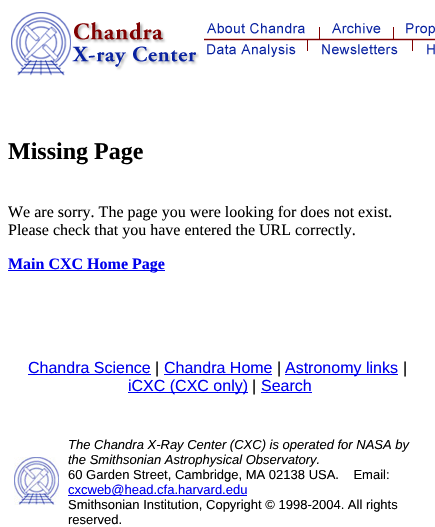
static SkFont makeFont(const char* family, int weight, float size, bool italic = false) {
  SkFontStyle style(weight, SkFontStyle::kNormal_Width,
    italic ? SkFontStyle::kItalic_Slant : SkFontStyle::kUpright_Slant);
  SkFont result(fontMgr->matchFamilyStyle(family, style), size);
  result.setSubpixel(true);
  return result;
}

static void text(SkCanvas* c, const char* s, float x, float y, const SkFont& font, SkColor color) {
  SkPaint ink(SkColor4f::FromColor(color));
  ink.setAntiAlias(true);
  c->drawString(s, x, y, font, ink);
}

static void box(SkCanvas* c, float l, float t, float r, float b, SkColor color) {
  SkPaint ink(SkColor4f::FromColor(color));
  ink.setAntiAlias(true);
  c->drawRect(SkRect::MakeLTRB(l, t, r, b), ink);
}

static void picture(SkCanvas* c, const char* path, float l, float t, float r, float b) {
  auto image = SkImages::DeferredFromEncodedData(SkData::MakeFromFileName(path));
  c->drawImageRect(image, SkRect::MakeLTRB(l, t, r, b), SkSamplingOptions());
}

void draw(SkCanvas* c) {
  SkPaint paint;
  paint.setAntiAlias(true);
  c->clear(0xffffffff);
  picture(c, "img_01.png", 11, 12, 199, 76);
  picture(c, "img_02.png", 203, 23, 435, 57);
  SkFont face1 = makeFont("Liberation Serif", 700, 24);
  text(c, "Missing Page", 8, 159, face1, 0xff000000);
  SkFont face2 = makeFont("Liberation Serif", 400, 16);
  text(c, "We are sorry. The page you were looking for does not exist.", 8, 217, face2, 0xff000000);
  text(c, "Please check that you have entered the URL correctly.", 8, 235, face2, 0xff000000);
  box(c, 8, 270, 165, 271, 0xff0000ee);
  SkFont face3 = makeFont("Liberation Serif", 700, 16);
  text(c, "Main CXC Home Page", 8, 269, face3, 0xff0000ee);
  SkFont face4 = makeFont("Liberation Sans", 400, 16);
  text(c, "Chandra Science", 28, 373, face4, 0xff0000ee);
  box(c, 28, 374, 151, 375, 0xff0000ee);
  text(c, "|", 155, 373, face4, 0xff000000);
  text(c, "Chandra Home", 164, 373, face4, 0xff0000ee);
  box(c, 164, 374, 272, 375, 0xff0000ee);
  text(c, "|", 277, 373, face4, 0xff000000);
  box(c, 285, 374, 398, 375, 0xff0000ee);
  text(c, "Astronomy links", 285, 373, face4, 0xff0000ee);
  text(c, "|", 403, 373, face4, 0xff000000);
  box(c, 128, 392, 248, 393, 0xff0000ee);
  text(c, "iCXC (CXC only)", 128, 391, face4, 0xff0000ee);
  text(c, "|", 252, 391, face4, 0xff000000);
  text(c, "Search", 261, 391, face4, 0xff0000ee);
  box(c, 261, 392, 312, 393, 0xff0000ee);
  picture(c, "img_03.png", 14, 457, 59, 505);
  SkFont face5 = makeFont("Liberation Sans", 400, 13, true);
  text(c, "The Chandra X-Ray Center (CXC) is operated for NASA by", 68, 449, face5, 0xff000000);
  text(c, "the Smithsonian Astrophysical Observatory.", 68, 464, face5, 0xff000000);
  SkFont face6 = makeFont("Liberation Sans", 400, 13);
  text(c, "60 Garden Street, Cambridge, MA 02138 USA.    Email:", 68, 479, face6, 0xff000000);
  box(c, 68, 495, 247, 496, 0xff0000ee);
  text(c, "cxcweb@head.cfa.harvard.edu", 68, 494, face6, 0xff0000ee);
  text(c, "Smithsonian Institution, Copyright © 1998-2004. All rights", 68, 509, face6, 0xff000000);
  text(c, "reserved.", 68, 524, face6, 0xff000000);
}
